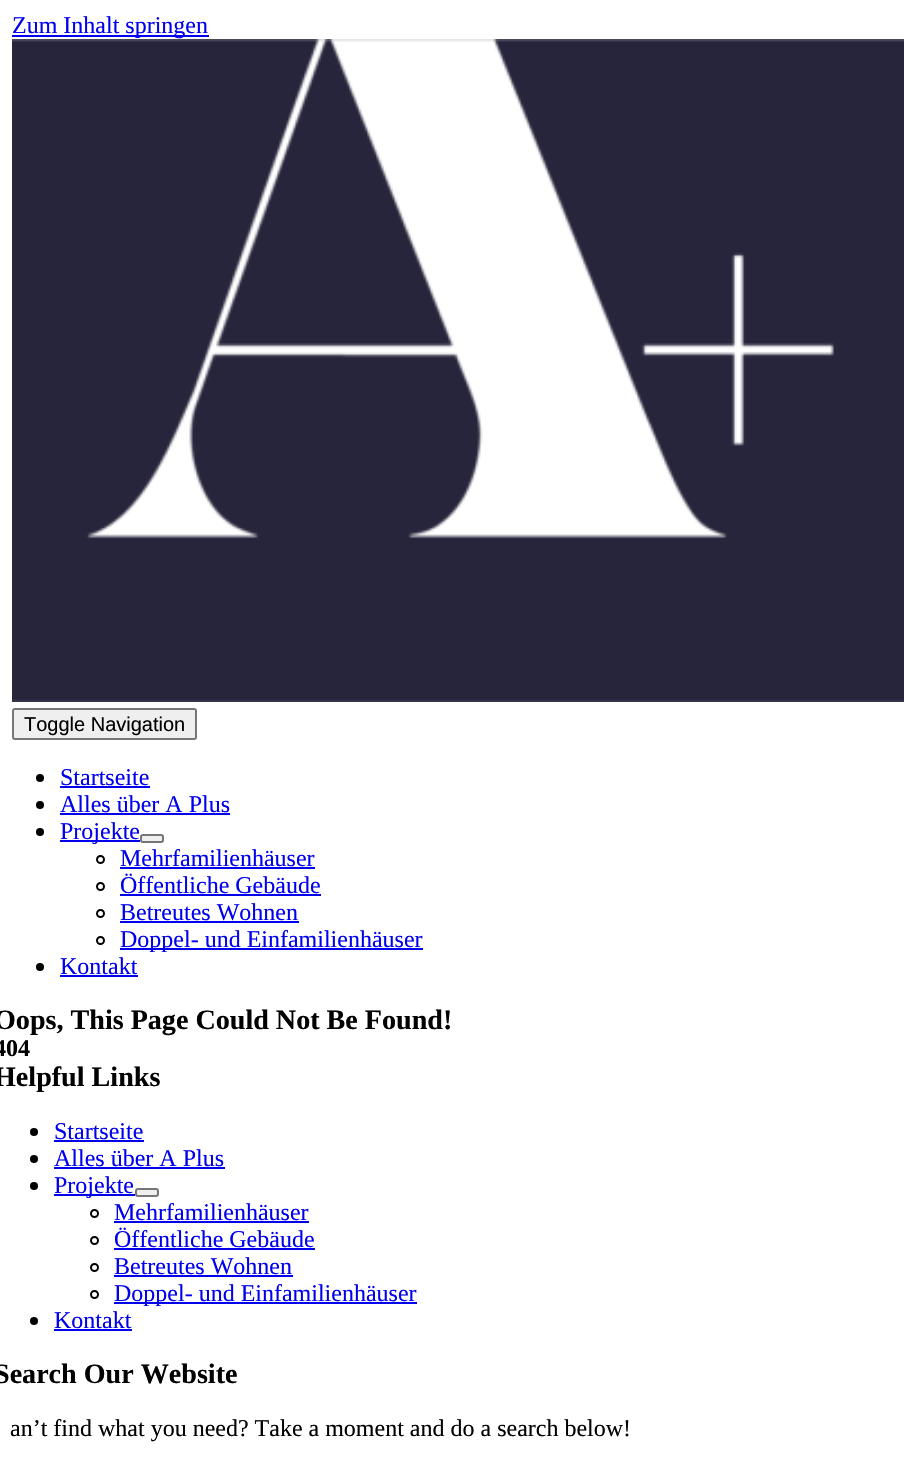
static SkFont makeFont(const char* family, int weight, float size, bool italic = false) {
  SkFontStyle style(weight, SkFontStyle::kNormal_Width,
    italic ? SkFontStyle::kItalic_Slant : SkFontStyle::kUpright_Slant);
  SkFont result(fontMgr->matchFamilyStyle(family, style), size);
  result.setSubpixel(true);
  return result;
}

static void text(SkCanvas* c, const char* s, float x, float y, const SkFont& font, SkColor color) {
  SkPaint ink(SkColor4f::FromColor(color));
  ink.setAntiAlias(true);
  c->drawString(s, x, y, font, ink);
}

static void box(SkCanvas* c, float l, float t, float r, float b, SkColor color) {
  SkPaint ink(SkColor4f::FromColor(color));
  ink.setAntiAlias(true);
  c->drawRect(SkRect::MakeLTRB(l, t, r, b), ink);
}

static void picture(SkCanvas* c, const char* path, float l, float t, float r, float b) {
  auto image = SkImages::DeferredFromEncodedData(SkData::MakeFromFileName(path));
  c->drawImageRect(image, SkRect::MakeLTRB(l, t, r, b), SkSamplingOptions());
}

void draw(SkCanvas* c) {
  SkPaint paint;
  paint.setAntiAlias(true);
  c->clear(0xffffffff);
  box(c, 12, 35, 209, 37, 0xff0000ee);
  SkFont face1 = makeFont("Liberation Serif", 400, 24);
  text(c, "Zum Inhalt springen", 12, 33, face1, 0xff0000ee);
  picture(c, "img_01.png", 12, 39, 904, 702);
  paint.setColor(0xffefefef);
  c->drawRoundRect(SkRect::MakeLTRB(13, 709, 196, 739), 2, 2, paint);
  paint.setStyle(SkPaint::kStroke_Style);
  paint.setStrokeWidth(2);
  paint.setColor(0xff767676);
  c->drawRoundRect(SkRect::MakeLTRB(13, 709, 196, 739), 2, 2, paint);
  SkFont face2 = makeFont("Liberation Sans", 400, 20);
  text(c, "Toggle Navigation", 24, 731, face2, 0xff000000);
  paint.setStyle(SkPaint::kFill_Style);
  paint.setColor(0xff000000);
  c->drawCircle(40, 778, 4, paint);
  text(c, "Startseite", 60, 785, face1, 0xff0000ee);
  box(c, 60, 786, 150, 788, 0xff0000ee);
  c->drawCircle(40, 805, 4, paint);
  text(c, "Alles über A Plus", 60, 812, face1, 0xff0000ee);
  box(c, 60, 813, 230, 815, 0xff0000ee);
  c->drawCircle(40, 832, 4, paint);
  box(c, 60, 840, 140, 842, 0xff0000ee);
  text(c, "Projekte", 60, 839, face1, 0xff0000ee);
  paint.setColor(0xffefefef);
  c->drawRoundRect(SkRect::MakeLTRB(141, 835, 163, 842), 2, 2, paint);
  paint.setStyle(SkPaint::kStroke_Style);
  paint.setColor(0xff767676);
  c->drawRoundRect(SkRect::MakeLTRB(141, 835, 163, 842), 2, 2, paint);
  paint.setColor(0xff000000);
  c->drawCircle(100.5f, 859.5f, 3.5f, paint);
  text(c, "Mehrfamilienhäuser", 120, 866, face1, 0xff0000ee);
  box(c, 120, 867, 315, 869, 0xff0000ee);
  c->drawCircle(100.5f, 886.5f, 3.5f, paint);
  text(c, "Öffentliche Gebäude", 120, 893, face1, 0xff0000ee);
  box(c, 120, 894, 321, 896, 0xff0000ee);
  c->drawCircle(100.5f, 913.5f, 3.5f, paint);
  text(c, "Betreutes Wohnen", 120, 920, face1, 0xff0000ee);
  box(c, 120, 921, 299, 923, 0xff0000ee);
  c->drawCircle(100.5f, 940.5f, 3.5f, paint);
  box(c, 120, 948, 423, 950, 0xff0000ee);
  text(c, "Doppel- und Einfamilienhäuser", 120, 947, face1, 0xff0000ee);
  paint.setStyle(SkPaint::kFill_Style);
  c->drawCircle(40, 967, 4, paint);
  text(c, "Kontakt", 60, 974, face1, 0xff0000ee);
  box(c, 60, 975, 138, 977, 0xff0000ee);
  SkFont face3 = makeFont("Liberation Serif", 700, 28.1f);
  text(c, "Oops, This Page Could Not Be Found!", -6, 1029, face3, 0xff000000);
  SkFont face4 = makeFont("Liberation Serif", 700, 24);
  text(c, "404", -6, 1056, face4, 0xff000000);
  text(c, "Helpful Links", -6, 1086, face3, 0xff000000);
  c->drawCircle(34, 1132, 4, paint);
  text(c, "Startseite", 54, 1139, face1, 0xff0000ee);
  box(c, 54, 1140, 144, 1142, 0xff0000ee);
  c->drawCircle(34, 1159, 4, paint);
  text(c, "Alles über A Plus", 54, 1166, face1, 0xff0000ee);
  box(c, 54, 1167, 225, 1169, 0xff0000ee);
  c->drawCircle(34, 1186, 4, paint);
  box(c, 54, 1194, 135, 1196, 0xff0000ee);
  text(c, "Projekte", 54, 1193, face1, 0xff0000ee);
  paint.setColor(0xffefefef);
  c->drawRoundRect(SkRect::MakeLTRB(136, 1189, 158, 1196), 2, 2, paint);
  paint.setStyle(SkPaint::kStroke_Style);
  paint.setColor(0xff767676);
  c->drawRoundRect(SkRect::MakeLTRB(136, 1189, 158, 1196), 2, 2, paint);
  paint.setColor(0xff000000);
  c->drawCircle(94.5f, 1213.5f, 3.5f, paint);
  text(c, "Mehrfamilienhäuser", 114, 1220, face1, 0xff0000ee);
  box(c, 114, 1221, 309, 1223, 0xff0000ee);
  c->drawCircle(94.5f, 1240.5f, 3.5f, paint);
  text(c, "Öffentliche Gebäude", 114, 1247, face1, 0xff0000ee);
  box(c, 114, 1248, 315, 1250, 0xff0000ee);
  c->drawCircle(94.5f, 1267.5f, 3.5f, paint);
  text(c, "Betreutes Wohnen", 114, 1274, face1, 0xff0000ee);
  box(c, 114, 1275, 293, 1277, 0xff0000ee);
  c->drawCircle(94.5f, 1294.5f, 3.5f, paint);
  box(c, 114, 1302, 417, 1304, 0xff0000ee);
  text(c, "Doppel- und Einfamilienhäuser", 114, 1301, face1, 0xff0000ee);
  paint.setStyle(SkPaint::kFill_Style);
  c->drawCircle(34, 1321, 4, paint);
  text(c, "Kontakt", 54, 1328, face1, 0xff0000ee);
  box(c, 54, 1329, 132, 1331, 0xff0000ee);
  text(c, "Search Our Website", -6, 1383, face3, 0xff000000);
  text(c, "an’t find what you need? Take a moment and do a search below!", 10, 1436, face1, 0xff000000);
}
